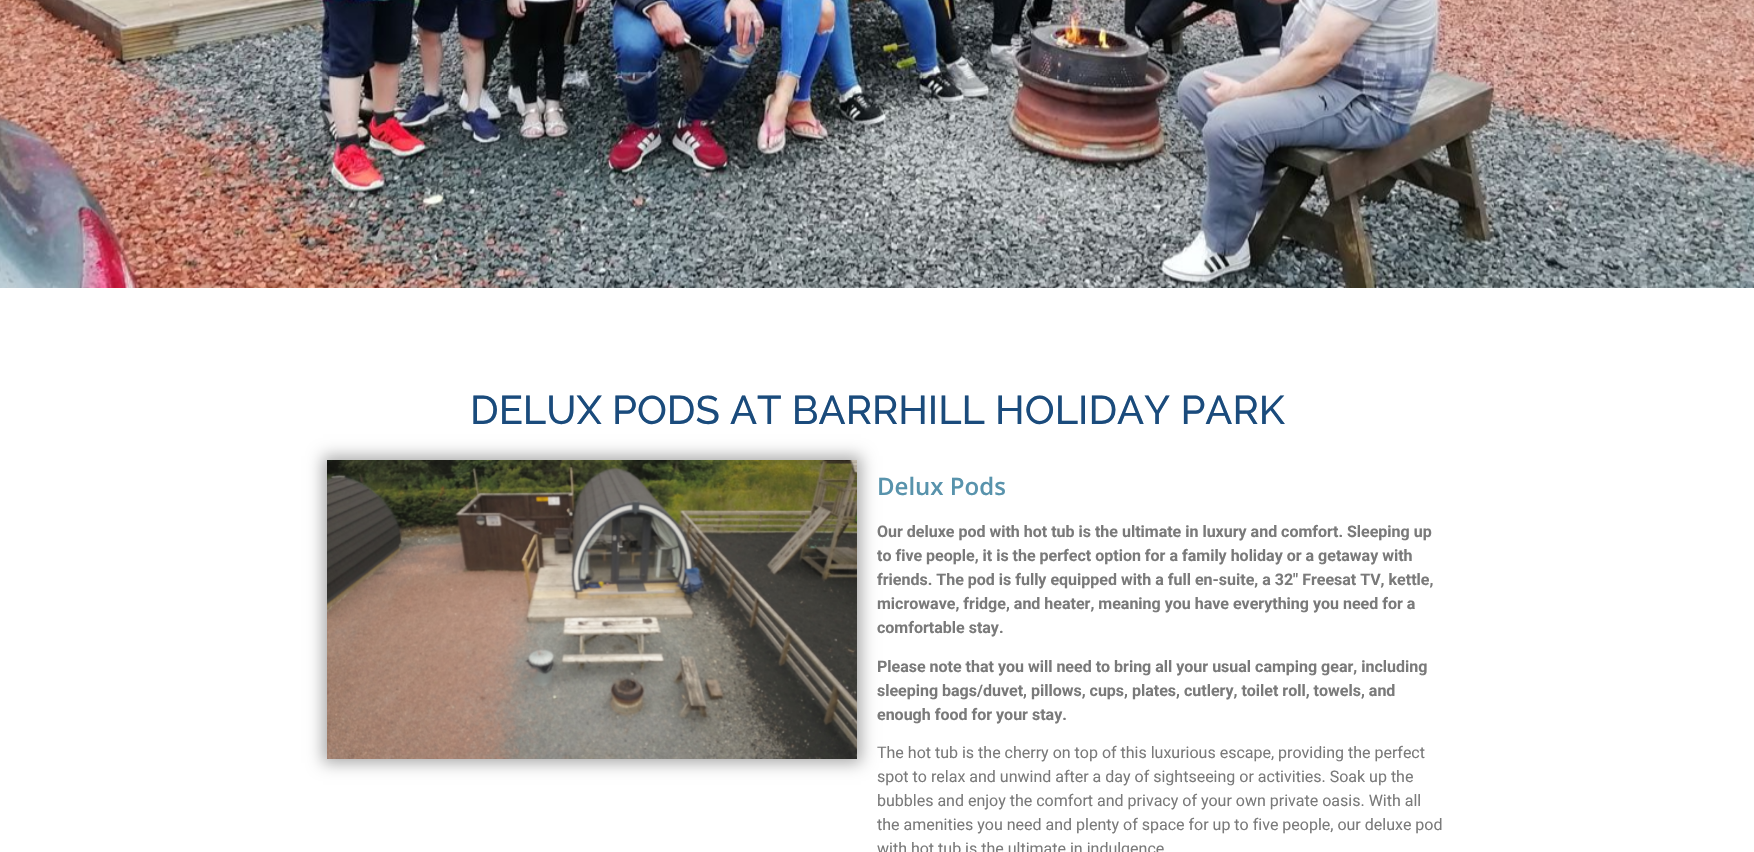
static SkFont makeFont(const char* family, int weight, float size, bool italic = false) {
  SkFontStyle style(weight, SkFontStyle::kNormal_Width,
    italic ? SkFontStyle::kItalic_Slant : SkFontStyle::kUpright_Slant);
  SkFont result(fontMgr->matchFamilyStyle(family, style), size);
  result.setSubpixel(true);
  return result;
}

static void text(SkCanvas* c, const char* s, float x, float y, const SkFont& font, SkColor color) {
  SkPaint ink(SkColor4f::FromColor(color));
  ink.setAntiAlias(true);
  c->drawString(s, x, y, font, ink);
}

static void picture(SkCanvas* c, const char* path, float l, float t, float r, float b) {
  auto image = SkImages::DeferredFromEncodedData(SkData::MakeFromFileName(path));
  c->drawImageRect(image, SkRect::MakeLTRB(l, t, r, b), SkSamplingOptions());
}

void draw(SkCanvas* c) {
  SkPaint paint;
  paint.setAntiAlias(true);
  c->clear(0xffffffff);
  picture(c, "img_01.png", 0, 0, 1754, 288);
  SkFont face1 = makeFont("Raleway", 500, 40);
  text(c, "DELUX PODS AT BARRHILL HOLIDAY PARK", 470, 424, face1, 0xff1a4b7c);
  paint.setColor(0x57000000);
  paint.setMaskFilter(SkMaskFilter::MakeBlur(kNormal_SkBlurStyle, 7.5f));
  c->drawRect(SkRect::MakeLTRB(323, 456, 861, 763), paint);
  paint.setMaskFilter(nullptr);
  picture(c, "img_02.png", 327, 460, 857, 759);
  SkFont face2 = makeFont("Open Sans", 600, 24);
  text(c, "Delux Pods", 877, 495, face2, 0xff5893ac);
  SkFont face3 = makeFont("Roboto", 700, 16);
  text(c, "Our deluxe pod with hot tub is the ultimate in luxury and comfort. Sleeping up", 877, 537, face3, 0xff7a7a7a);
  text(c, "to five people, it is the perfect option for a family holiday or a getaway with", 877, 561, face3, 0xff7a7a7a);
  text(c, "friends. The pod is fully equipped with a full en-suite, a 32″ Freesat TV, kettle,", 877, 585, face3, 0xff7a7a7a);
  text(c, "microwave, fridge, and heater, meaning you have everything you need for a", 877, 609, face3, 0xff7a7a7a);
  text(c, "comfortable stay.", 877, 633, face3, 0xff7a7a7a);
  text(c, "Please note that you will need to bring all your usual camping gear, including", 877, 672, face3, 0xff7a7a7a);
  text(c, "sleeping bags/duvet, pillows, cups, plates, cutlery, toilet roll, towels, and", 877, 696, face3, 0xff7a7a7a);
  text(c, "enough food for your stay.", 877, 720, face3, 0xff7a7a7a);
  SkFont face4 = makeFont("Roboto", 400, 16);
  text(c, "The hot tub is the cherry on top of this luxurious escape, providing the perfect", 877, 758, face4, 0xff7a7a7a);
  text(c, "spot to relax and unwind after a day of sightseeing or activities. Soak up the", 877, 782, face4, 0xff7a7a7a);
  text(c, "bubbles and enjoy the comfort and privacy of your own private oasis. With all", 877, 806, face4, 0xff7a7a7a);
  text(c, "the amenities you need and plenty of space for up to five people, our deluxe pod", 877, 830, face4, 0xff7a7a7a);
  text(c, "with hot tub is the ultimate in indulgence", 877, 854, face4, 0xff7a7a7a);
}
